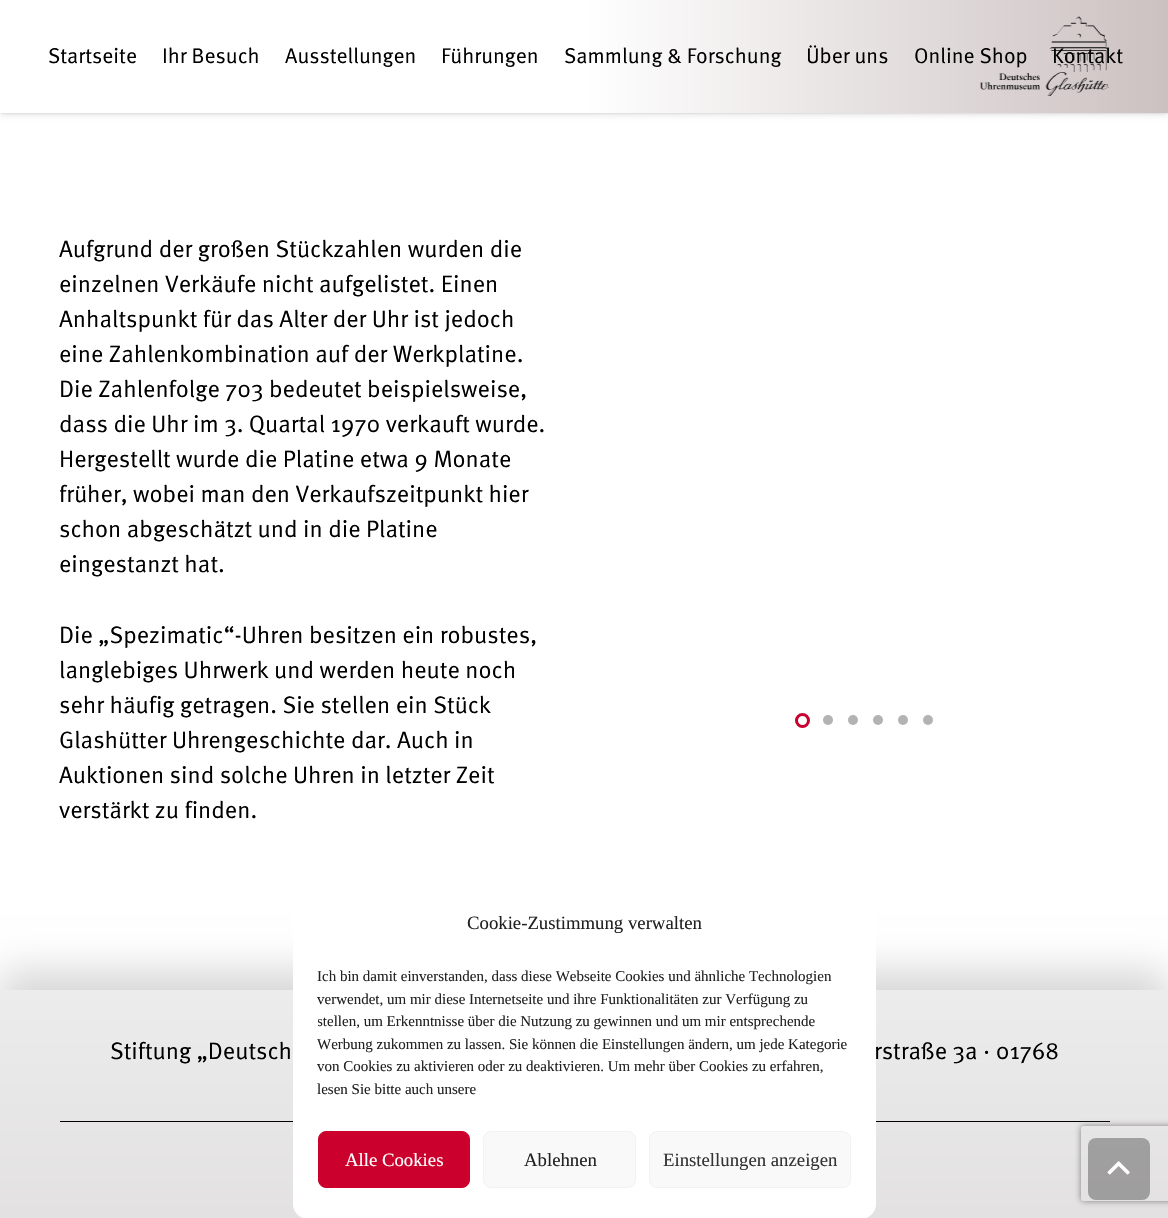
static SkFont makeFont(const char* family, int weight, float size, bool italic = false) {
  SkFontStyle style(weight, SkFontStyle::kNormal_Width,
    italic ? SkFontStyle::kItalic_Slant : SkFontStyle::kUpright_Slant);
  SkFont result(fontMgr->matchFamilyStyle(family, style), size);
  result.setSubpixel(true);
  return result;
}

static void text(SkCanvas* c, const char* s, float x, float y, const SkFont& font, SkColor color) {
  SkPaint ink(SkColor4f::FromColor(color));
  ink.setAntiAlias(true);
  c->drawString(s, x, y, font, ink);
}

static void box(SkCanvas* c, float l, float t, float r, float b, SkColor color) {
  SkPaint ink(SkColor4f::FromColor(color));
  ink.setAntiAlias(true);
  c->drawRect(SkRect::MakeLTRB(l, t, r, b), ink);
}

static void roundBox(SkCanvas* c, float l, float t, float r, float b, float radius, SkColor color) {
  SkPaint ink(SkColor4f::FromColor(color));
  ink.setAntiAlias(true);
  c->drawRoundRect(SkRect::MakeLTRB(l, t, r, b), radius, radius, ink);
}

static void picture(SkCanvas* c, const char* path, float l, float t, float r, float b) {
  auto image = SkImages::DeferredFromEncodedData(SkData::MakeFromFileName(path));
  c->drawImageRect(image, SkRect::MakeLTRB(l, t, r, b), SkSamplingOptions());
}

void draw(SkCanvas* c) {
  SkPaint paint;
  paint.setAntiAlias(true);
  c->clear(0xffffffff);
  paint.setColor(0x0d000000);
  paint.setMaskFilter(SkMaskFilter::MakeBlur(kNormal_SkBlurStyle, 0.5f));
  c->drawRect(SkRect::MakeLTRB(1, 4, 1168, 114), paint);
  paint.setMaskFilter(nullptr);
  paint.setColor(0x1a000000);
  paint.setMaskFilter(SkMaskFilter::MakeBlur(kNormal_SkBlurStyle, 3));
  c->drawRect(SkRect::MakeLTRB(1, 5, 1168, 115), paint);
  paint.setMaskFilter(nullptr);
  {
    const SkColor colors[] = {0xffffffff, 0xffccc1c1};
    const float stops[] = {0.5f, 1};
    const SkPoint ends[] = {{0, 56}, {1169, 56}};
    paint.setShader(SkGradientShader::MakeLinear(ends, colors, stops, 2, SkTileMode::kClamp));
    paint.setAlpha(255);
  }
  c->drawRect(SkRect::MakeLTRB(0, 0, 1168, 113), paint);
  picture(c, "img_01.png", 979, 16, 1109, 96);
  SkFont face1 = makeFont("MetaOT", 400, 21.25f);
  text(c, "Startseite", 48, 63, face1, 0xff000000);
  text(c, "Ihr Besuch", 162, 63, face1, 0xff000000);
  text(c, "Ausstellungen", 285, 63, face1, 0xff000000);
  text(c, "Führungen", 441, 63, face1, 0xff000000);
  text(c, "Sammlung & Forschung", 564, 63, face1, 0xff000000);
  text(c, "Über uns", 806, 63, face1, 0xff000000);
  text(c, "Online Shop", 914, 63, face1, 0xff000000);
  text(c, "Kontakt", 1052, 63, face1, 0xff000000);
  SkFont face2 = makeFont("MetaOT", 400, 23.75f);
  text(c, "Aufgrund der großen Stückzahlen wurden die", 59, 257, face2, 0xff000000);
  text(c, "einzelnen Verkäufe nicht aufgelistet. Einen", 59, 292, face2, 0xff000000);
  text(c, "Anhaltspunkt für das Alter der Uhr ist jedoch", 59, 327, face2, 0xff000000);
  text(c, "eine Zahlenkombination auf der Werkplatine.", 59, 362, face2, 0xff000000);
  text(c, "Die Zahlenfolge 703 bedeutet beispielsweise,", 59, 397, face2, 0xff000000);
  text(c, "dass die Uhr im 3. Quartal 1970 verkauft wurde.", 59, 432, face2, 0xff000000);
  text(c, "Hergestellt wurde die Platine etwa 9 Monate", 59, 467, face2, 0xff000000);
  text(c, "früher, wobei man den Verkaufszeitpunkt hier", 59, 502, face2, 0xff000000);
  text(c, "schon abgeschätzt und in die Platine", 59, 537, face2, 0xff000000);
  text(c, "eingestanzt hat.", 59, 572, face2, 0xff000000);
  text(c, "Die „Spezimatic“-Uhren besitzen ein robustes,", 59, 643, face2, 0xff000000);
  text(c, "langlebiges Uhrwerk und werden heute noch", 59, 678, face2, 0xff000000);
  text(c, "sehr häufig getragen. Sie stellen ein Stück", 59, 713, face2, 0xff000000);
  text(c, "Glashütter Uhrengeschichte dar. Auch in", 59, 748, face2, 0xff000000);
  text(c, "Auktionen sind solche Uhren in letzter Zeit", 59, 783, face2, 0xff000000);
  text(c, "verstärkt zu finden.", 59, 818, face2, 0xff000000);
  paint.setStyle(SkPaint::kStroke_Style);
  paint.setStrokeWidth(3);
  paint.setShader(nullptr);
  paint.setColor(0xffcb002c);
  c->drawCircle(802.5f, 720.5f, 6, paint);
  paint.setStyle(SkPaint::kFill_Style);
  paint.setColor(0xffb3b3b3);
  c->drawCircle(828, 720, 5, paint);
  c->drawCircle(853, 720, 5, paint);
  c->drawCircle(878, 720, 5, paint);
  c->drawCircle(903, 720, 5, paint);
  c->drawCircle(928, 720, 5, paint);
  paint.setColor(0x29000000);
  paint.setMaskFilter(SkMaskFilter::MakeBlur(kNormal_SkBlurStyle, 19));
  c->drawRect(SkRect::MakeLTRB(0, 971, 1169, 1200), paint);
  paint.setMaskFilter(nullptr);
  {
    const SkColor colors[] = {0xffececec, 0xffe3e1e1};
    const float stops[] = {0, 1};
    const SkPoint ends[] = {{584, 990}, {584, 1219}};
    paint.setShader(SkGradientShader::MakeLinear(ends, colors, stops, 2, SkTileMode::kClamp));
    paint.setAlpha(255);
  }
  c->drawRect(SkRect::MakeLTRB(0, 990, 1168, 1218), paint);
  text(c, "rstraße 3a · 01768", 874, 1059, face2, 0xff000000);
  box(c, 60, 1121, 1110, 1122, 0xff000000);
  roundBox(c, 293, 886, 876, 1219, 15, 0xffffffff);
  SkFont face3 = makeFont("Liberation Serif", 400, 18.75f);
  text(c, "Cookie-Zustimmung verwalten", 467, 929, face3, 0xff222222);
  SkFont face4 = makeFont("Liberation Serif", 400, 15);
  text(c, "Ich bin damit einverstanden, dass diese Webseite Cookies und ähnliche Technologien", 317, 981, face4, 0xff222222);
  text(c, "verwendet, um mir diese Internetseite und ihre Funktionalitäten zur Verfügung zu", 317, 1004, face4, 0xff222222);
  c->save();
  c->clipRect(SkRect::MakeLTRB(318, 965, 851, 1106));
  text(c, "stellen, um Erkenntnisse über die Nutzung zu gewinnen und um mir entsprechende", 317, 1026, face4, 0xff222222);
  c->restore();
  text(c, "Werbung zukommen zu lassen. Sie können die Einstellungen ändern, um jede Kategorie", 317, 1049, face4, 0xff222222);
  text(c, "von Cookies zu aktivieren oder zu deaktivieren. Um mehr über Cookies zu erfahren,", 317, 1071, face4, 0xff222222);
  text(c, "lesen Sie bitte auch unsere", 317, 1094, face4, 0xff222222);
  paint.setShader(nullptr);
  paint.setColor(0xffcb002c);
  c->drawRoundRect(SkRect::MakeLTRB(318.5f, 1131.5f, 469.5f, 1187.5f), 7.5f, 7.5f, paint);
  paint.setStyle(SkPaint::kStroke_Style);
  paint.setStrokeWidth(1);
  c->drawRoundRect(SkRect::MakeLTRB(318.5f, 1131.5f, 469.5f, 1187.5f), 7.5f, 7.5f, paint);
  text(c, "Alle Cookies", 345, 1166, face3, 0xffffffff);
  paint.setStyle(SkPaint::kFill_Style);
  paint.setColor(0xfff9f9f9);
  c->drawRoundRect(SkRect::MakeLTRB(483.5f, 1131.5f, 635.5f, 1187.5f), 7.5f, 7.5f, paint);
  paint.setStyle(SkPaint::kStroke_Style);
  paint.setColor(0xfff2f2f2);
  c->drawRoundRect(SkRect::MakeLTRB(483.5f, 1131.5f, 635.5f, 1187.5f), 7.5f, 7.5f, paint);
  text(c, "Ablehnen", 524, 1166, face3, 0xff222222);
  paint.setStyle(SkPaint::kFill_Style);
  paint.setColor(0xfff9f9f9);
  c->drawRoundRect(SkRect::MakeLTRB(649.5f, 1131.5f, 850.5f, 1187.5f), 7.5f, 7.5f, paint);
  paint.setStyle(SkPaint::kStroke_Style);
  paint.setColor(0xfff2f2f2);
  c->drawRoundRect(SkRect::MakeLTRB(649.5f, 1131.5f, 850.5f, 1187.5f), 7.5f, 7.5f, paint);
  text(c, "Einstellungen anzeigen", 663, 1166, face3, 0xff333333);
  text(c, "Stiftung „Deutsch", 110, 1059, face2, 0xff000000);
  c->save();
  c->clipPath(SkPathBuilder(SkPathFillType::kEvenOdd).moveTo(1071, 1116).lineTo(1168, 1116).lineTo(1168, 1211).lineTo(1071, 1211).close().moveTo(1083.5f, 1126).lineTo(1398.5f, 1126).cubicTo(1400, 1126, 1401, 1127, 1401, 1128.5f).lineTo(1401, 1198.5f).cubicTo(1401, 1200, 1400, 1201, 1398.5f, 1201).lineTo(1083.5f, 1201).cubicTo(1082, 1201, 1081, 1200, 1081, 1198.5f).lineTo(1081, 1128.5f).cubicTo(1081, 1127, 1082, 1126, 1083.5f, 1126).close().detach(), true);
  paint.setStyle(SkPaint::kFill_Style);
  paint.setColor(0xff808080);
  paint.setMaskFilter(SkMaskFilter::MakeBlur(kNormal_SkBlurStyle, 3));
  c->drawRoundRect(SkRect::MakeLTRB(1081, 1126, 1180, 1201), 2.5f, 2.5f, paint);
  paint.setMaskFilter(nullptr);
  c->restore();
  roundBox(c, 1088, 1138, 1150, 1200, 8, 0x4d000000);
  picture(c, "img_02.png", 1107, 1161, 1130, 1175);
}
